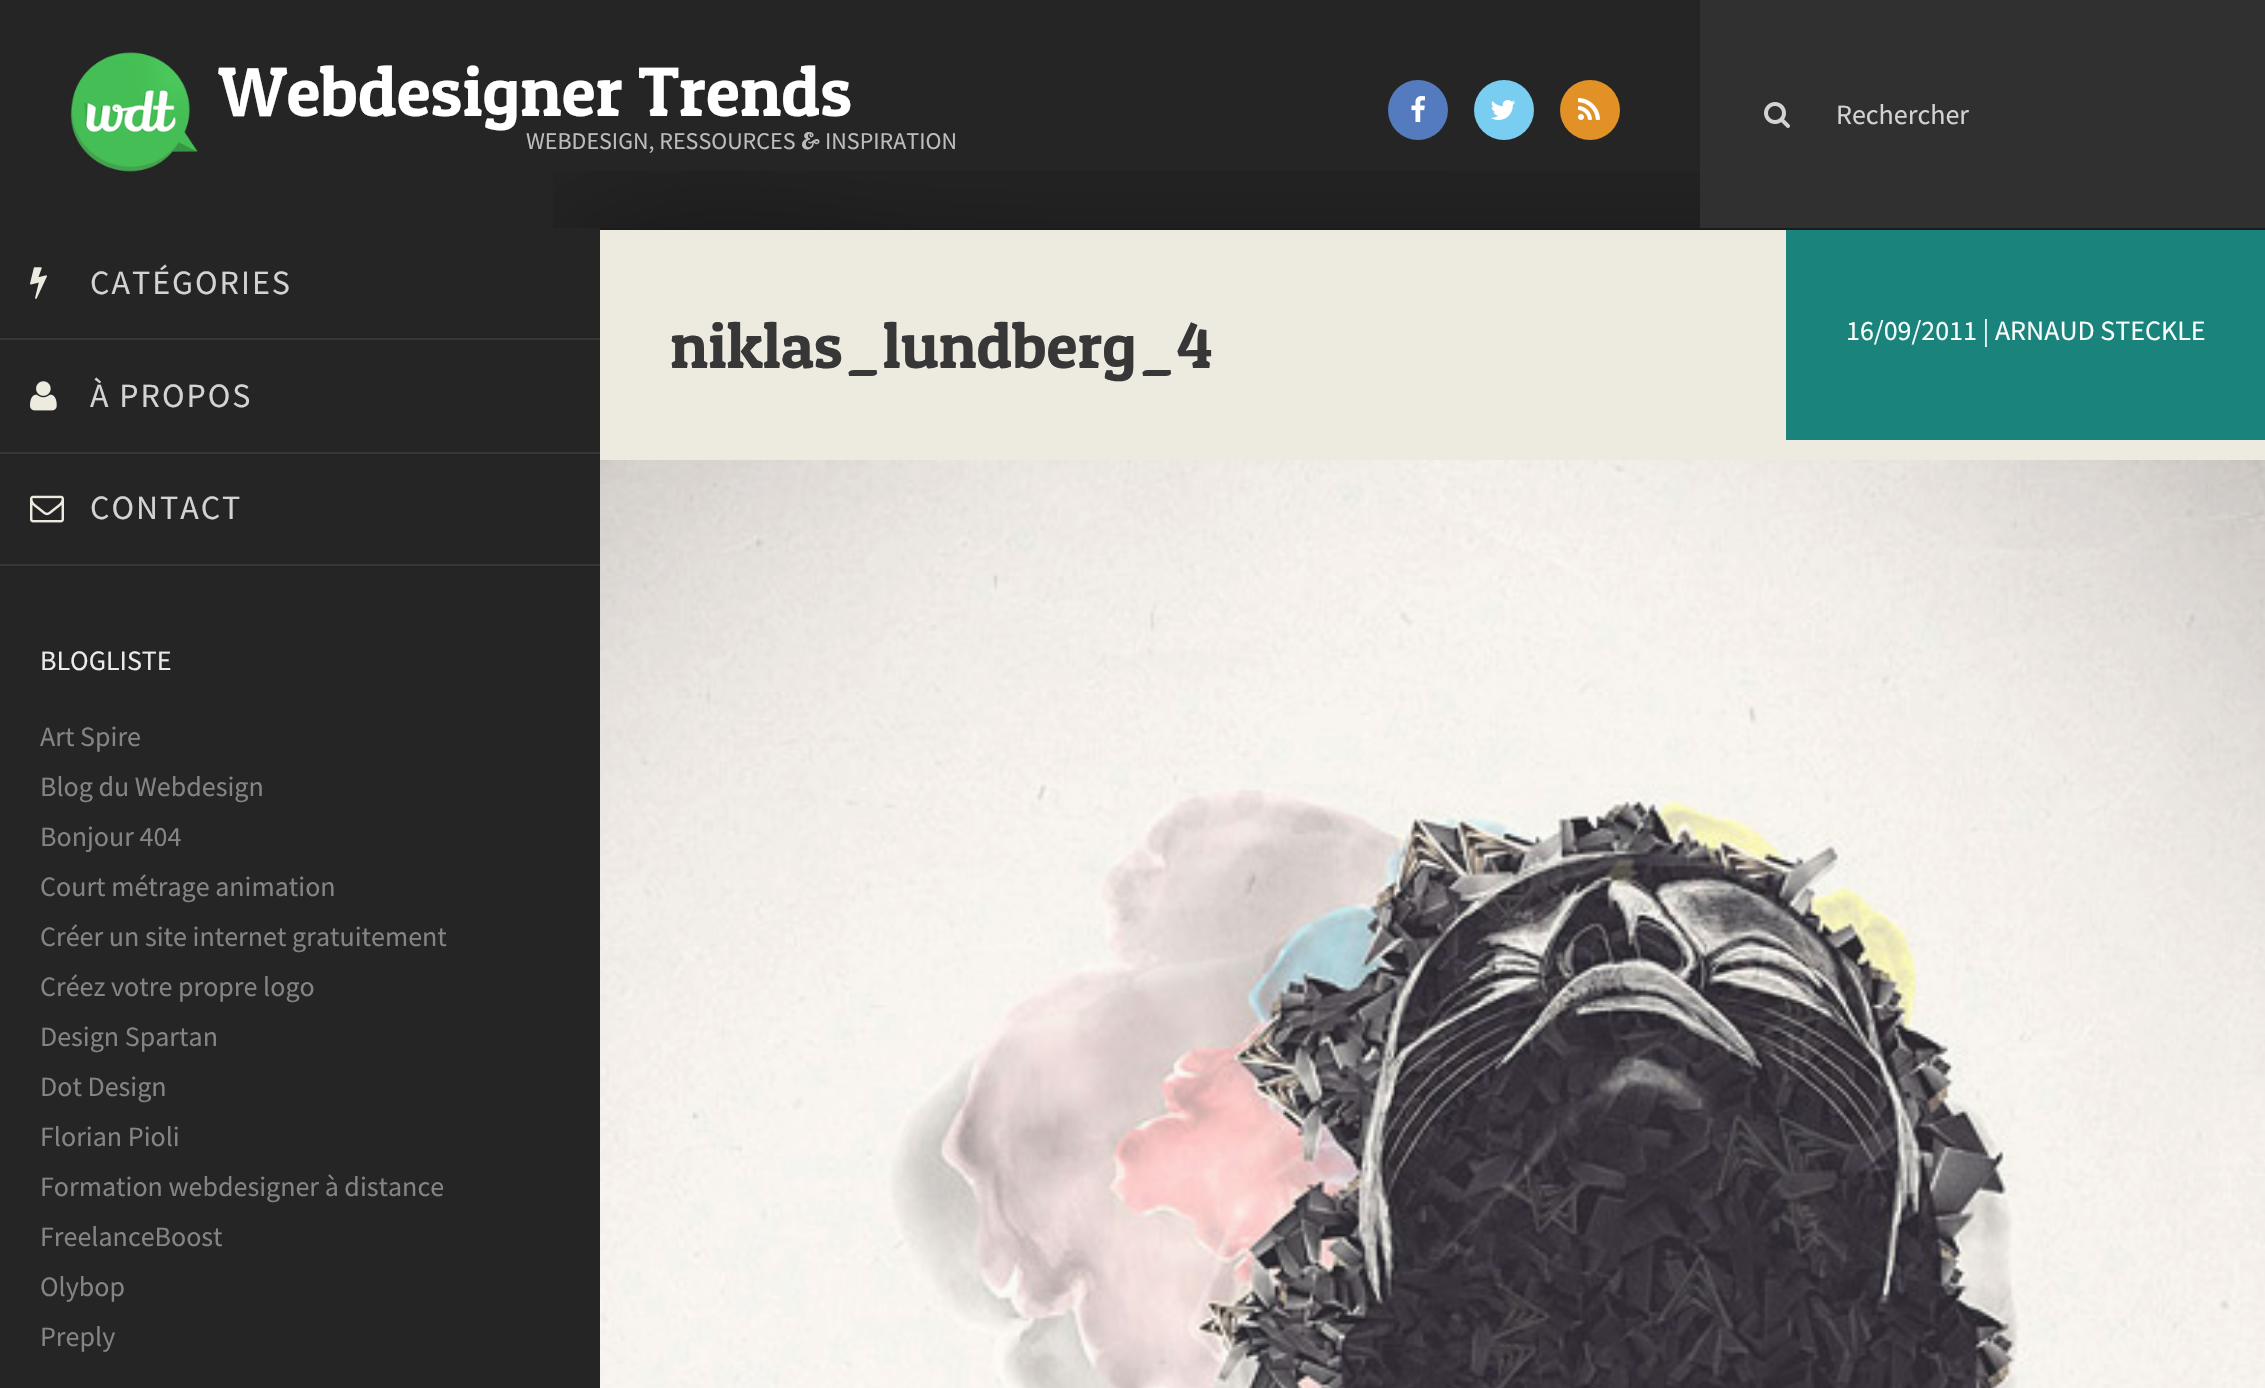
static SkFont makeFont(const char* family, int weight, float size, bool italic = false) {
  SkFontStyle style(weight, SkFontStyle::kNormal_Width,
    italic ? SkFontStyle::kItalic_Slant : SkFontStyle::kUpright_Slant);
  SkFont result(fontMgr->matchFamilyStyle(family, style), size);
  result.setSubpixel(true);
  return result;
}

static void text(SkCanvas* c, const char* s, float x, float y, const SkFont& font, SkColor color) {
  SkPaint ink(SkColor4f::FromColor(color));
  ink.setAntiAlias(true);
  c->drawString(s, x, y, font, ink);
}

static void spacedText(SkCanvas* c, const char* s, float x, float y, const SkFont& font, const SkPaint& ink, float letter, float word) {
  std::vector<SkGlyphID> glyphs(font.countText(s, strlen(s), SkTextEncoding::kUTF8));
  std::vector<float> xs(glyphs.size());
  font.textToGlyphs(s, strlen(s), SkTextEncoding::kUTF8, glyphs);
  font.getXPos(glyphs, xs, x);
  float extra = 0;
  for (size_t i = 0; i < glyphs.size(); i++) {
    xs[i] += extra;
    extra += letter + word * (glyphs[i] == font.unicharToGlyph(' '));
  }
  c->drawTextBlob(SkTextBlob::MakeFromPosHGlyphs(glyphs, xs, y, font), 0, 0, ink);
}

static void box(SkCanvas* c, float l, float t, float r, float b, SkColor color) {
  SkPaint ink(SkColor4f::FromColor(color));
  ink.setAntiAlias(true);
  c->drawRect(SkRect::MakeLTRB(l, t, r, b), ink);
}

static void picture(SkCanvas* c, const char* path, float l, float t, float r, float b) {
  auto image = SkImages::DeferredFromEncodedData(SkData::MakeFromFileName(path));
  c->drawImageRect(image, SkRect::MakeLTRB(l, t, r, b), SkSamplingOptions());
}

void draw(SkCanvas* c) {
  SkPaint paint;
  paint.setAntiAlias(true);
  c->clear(0xff252525);
  picture(c, "img_01.png", 553, 171, 1700, 228);
  picture(c, "img_02.png", 70, 52, 198, 172);
  SkFont face1 = makeFont("Patua One", 400, 70);
  text(c, "Webdesigner Trends", 218, 116, face1, 0xffffffff);
  SkFont face2 = makeFont("Source Sans Pro", 400, 24);
  text(c, "WEBDESIGN, RESSOURCES", 526, 149, face2, 0xffbcbcbc);
  SkFont face3 = makeFont("Oleo Script Swash Caps", 400, 24);
  text(c, "&", 800, 149, face3, 0xffbcbcbc);
  text(c, "INSPIRATION", 825, 149, face2, 0xffbcbcbc);
  paint.setColor(0xff537bbd);
  c->drawCircle(1418, 110, 30, paint);
  picture(c, "img_03.png", 1411, 96, 1425, 122);
  paint.setColor(0xff78cdf0);
  c->drawCircle(1504, 110, 30, paint);
  picture(c, "img_04.png", 1491, 100, 1516, 120);
  paint.setColor(0xffe19126);
  c->drawCircle(1590, 110, 30, paint);
  picture(c, "img_05.png", 1578, 98, 1600, 120);
  box(c, 1700, 0, 2265, 228, 0xff303030);
  picture(c, "img_06.png", 1764, 102, 1790, 128);
  SkFont face4 = makeFont("Source Sans Pro", 400, 28);
  text(c, "Rechercher", 1836, 124, face4, 0xffd3d3d3);
  box(c, 0, 338, 600, 340, 0xff373737);
  picture(c, "img_07.png", 30, 267, 47, 299);
  SkFont face5 = makeFont("Source Sans Pro", 400, 34);
  paint.setColor(0xffd3d3d3);
  spacedText(c, "CATÉGORIES", 90, 294, face5, paint, 2, 0);
  box(c, 0, 452, 600, 454, 0xff373737);
  picture(c, "img_08.png", 30, 381, 57, 411);
  spacedText(c, "À PROPOS", 90, 407, face5, paint, 2, 0);
  box(c, 0, 564, 600, 566, 0xff373737);
  picture(c, "img_09.png", 30, 495, 64, 523);
  spacedText(c, "CONTACT", 90, 519, face5, paint, 2, 0);
  text(c, "BLOGLISTE", 40, 670, face4, 0xffebebeb);
  text(c, "Art Spire", 40, 746, face4, 0xff848484);
  text(c, "Blog du Webdesign", 40, 796, face4, 0xff848484);
  text(c, "Bonjour 404", 40, 846, face4, 0xff848484);
  text(c, "Court métrage animation", 40, 896, face4, 0xff848484);
  text(c, "Créer un site internet gratuitement", 40, 946, face4, 0xff848484);
  text(c, "Créez votre propre logo", 40, 996, face4, 0xff848484);
  text(c, "Design Spartan", 40, 1046, face4, 0xff848484);
  text(c, "Dot Design", 40, 1096, face4, 0xff848484);
  text(c, "Florian Pioli", 40, 1146, face4, 0xff848484);
  text(c, "Formation webdesigner à distance", 40, 1196, face4, 0xff848484);
  text(c, "FreelanceBoost", 40, 1246, face4, 0xff848484);
  text(c, "Olybop", 40, 1296, face4, 0xff848484);
  text(c, "Preply", 40, 1346, face4, 0xff848484);
  box(c, 600, 228, 2265, 230, 0xff1c1c1c);
  box(c, 600, 230, 2265, 460, 0xffedeae0);
  SkFont face6 = makeFont("Patua One", 400, 64);
  text(c, "niklas_lundberg_4", 670, 368, face6, 0xff373737);
  box(c, 1786, 230, 2265, 440, 0xff1a847c);
  text(c, "16/09/2011 | ARNAUD STECKLE", 1846, 340, face4, 0xfff9fcfc);
  picture(c, "img_10.png", 600, 460, 2265, 1388);
}
